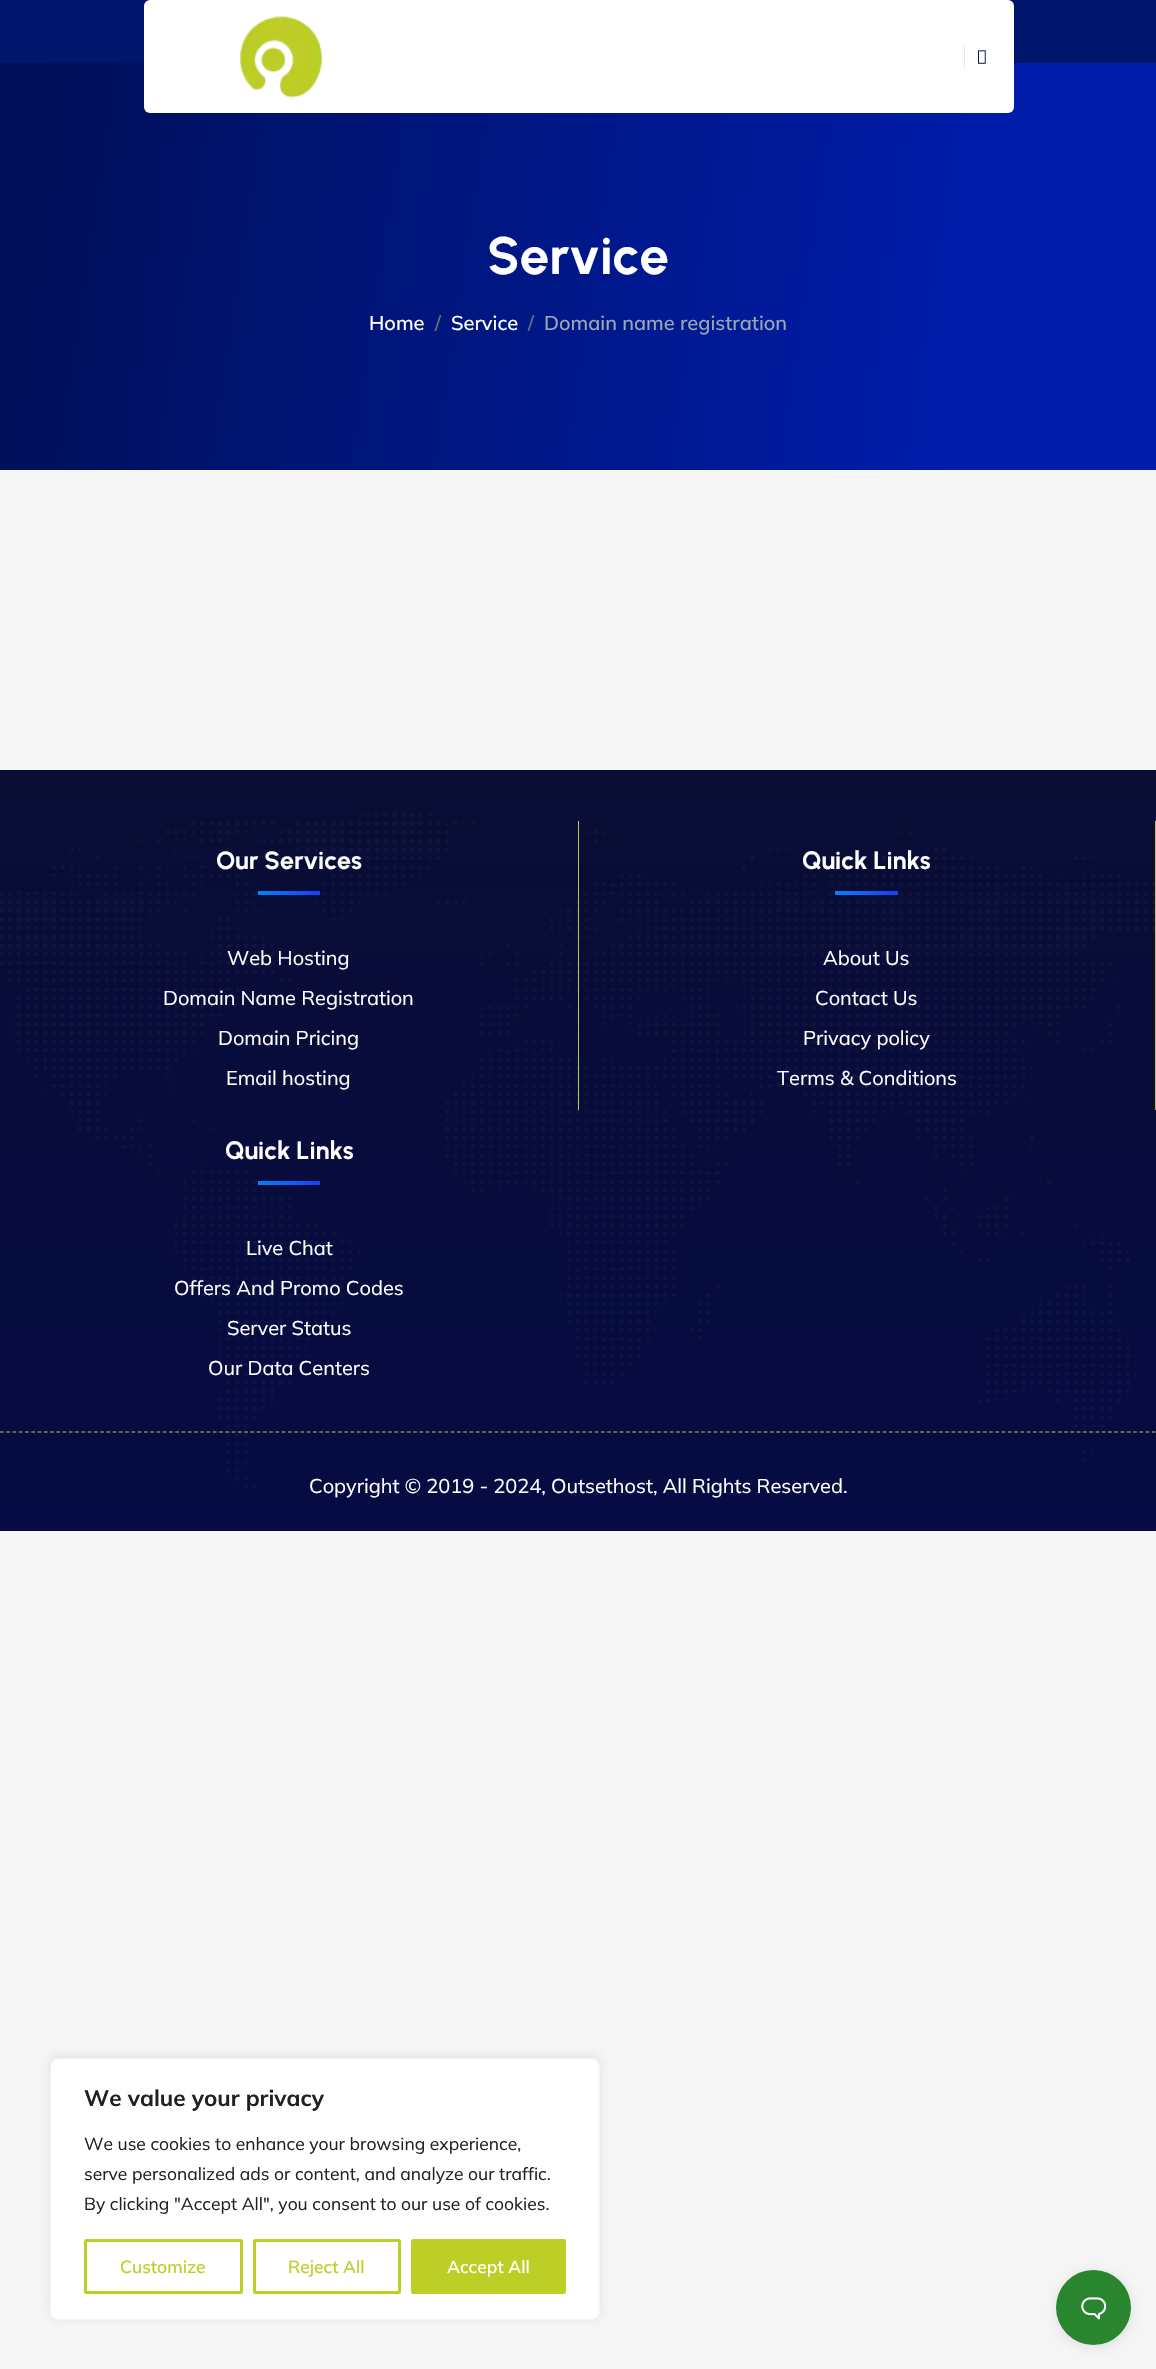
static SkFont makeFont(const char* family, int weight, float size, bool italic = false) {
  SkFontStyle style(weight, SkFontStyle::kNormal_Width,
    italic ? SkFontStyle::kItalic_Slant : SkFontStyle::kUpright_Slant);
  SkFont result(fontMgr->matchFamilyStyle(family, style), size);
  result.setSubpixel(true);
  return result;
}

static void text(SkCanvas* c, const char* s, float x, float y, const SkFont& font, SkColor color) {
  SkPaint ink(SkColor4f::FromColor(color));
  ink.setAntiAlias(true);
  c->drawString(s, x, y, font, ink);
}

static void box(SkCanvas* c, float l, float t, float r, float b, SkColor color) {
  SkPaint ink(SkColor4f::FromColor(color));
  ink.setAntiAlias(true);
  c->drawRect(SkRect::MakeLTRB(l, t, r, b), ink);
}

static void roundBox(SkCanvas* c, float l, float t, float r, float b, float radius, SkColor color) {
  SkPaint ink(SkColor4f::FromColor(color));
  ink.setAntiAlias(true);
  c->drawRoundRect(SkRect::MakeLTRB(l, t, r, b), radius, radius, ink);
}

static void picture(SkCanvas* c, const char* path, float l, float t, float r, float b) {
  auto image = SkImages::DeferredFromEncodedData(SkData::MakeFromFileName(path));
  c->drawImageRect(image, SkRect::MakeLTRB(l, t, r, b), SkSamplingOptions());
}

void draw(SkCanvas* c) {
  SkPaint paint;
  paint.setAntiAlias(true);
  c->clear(0xfff6f6f6);
  box(c, 0, 0, 1156, 63, 0xff00166d);
  {
    const SkColor colors[] = {0xff001dac, 0xff000f57};
    const float stops[] = {0.16f, 0.99f};
    const SkPoint ends[] = {{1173, 356}, {-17, 177}};
    paint.setShader(SkGradientShader::MakeLinear(ends, colors, stops, 2, SkTileMode::kClamp));
    paint.setAlpha(255);
  }
  c->drawRect(SkRect::MakeLTRB(0, 63, 1156, 470), paint);
  roundBox(c, 144, 0, 1014, 113, 6, 0xffffffff);
  picture(c, "img_01.png", 239, 16, 323, 98);
  box(c, 964, 45, 965, 68, 0xffe8e8e8);
  picture(c, "img_02.png", 978, 50, 986, 64);
  SkFont face1 = makeFont("Urbanist", 700, 52.5f);
  text(c, "Service", 487, 274, face1, 0xffffffff);
  SkFont face2 = makeFont("Mulish", 500, 20);
  text(c, "Home", 369, 330, face2, 0xffffffff);
  text(c, "/", 435, 330, face2, 0xff6c757d);
  text(c, "Service", 451, 330, face2, 0xffffffff);
  text(c, "/", 528, 330, face2, 0xff6c757d);
  text(c, "Domain name registration", 544, 330, face2, 0xff9da7b0);
  {
    const SkColor colors[] = {0xff0a0d34, 0xff060b43};
    const float stops[] = {0, 0.98f};
    const SkPoint ends[] = {{578, 766}, {578, 1531}};
    paint.setShader(SkGradientShader::MakeLinear(ends, colors, stops, 2, SkTileMode::kClamp));
    paint.setAlpha(255);
  }
  c->drawRect(SkRect::MakeLTRB(0, 770, 1156, 1531), paint);
  picture(c, "img_03.png", 0, 813, 1155, 1489);
  box(c, 578, 821, 579, 1110, 0xffbecd3e);
  SkFont face3 = makeFont("Urbanist", 700, 25);
  text(c, "Our Services", 216, 869, face3, 0xffffffff);
  {
    const SkColor colors[] = {0xff0082f8, 0xff1c40f2};
    const float stops[] = {0.01f, 0.98f};
    const SkPoint ends[] = {{258, 890}, {320, 896}};
    paint.setShader(SkGradientShader::MakeLinear(ends, colors, stops, 2, SkTileMode::kClamp));
    paint.setAlpha(255);
  }
  c->drawRect(SkRect::MakeLTRB(258, 891, 320, 895), paint);
  SkFont face4 = makeFont("Mulish", 400, 20);
  text(c, "Web Hosting", 227, 965, face4, 0xffffffff);
  text(c, "Domain Name Registration", 163, 1005, face4, 0xffffffff);
  text(c, "Domain Pricing", 218, 1045, face4, 0xffffffff);
  text(c, "Email hosting", 226, 1085, face4, 0xffffffff);
  box(c, 1155, 821, 1156, 1110, 0xffbecd3e);
  text(c, "Quick Links", 802, 869, face3, 0xffffffff);
  {
    const SkColor colors[] = {0xff0082f8, 0xff1c40f2};
    const float stops[] = {0.01f, 0.98f};
    const SkPoint ends[] = {{835, 890}, {897, 896}};
    paint.setShader(SkGradientShader::MakeLinear(ends, colors, stops, 2, SkTileMode::kClamp));
    paint.setAlpha(255);
  }
  c->drawRect(SkRect::MakeLTRB(835, 891, 898, 895), paint);
  text(c, "About Us", 823, 965, face4, 0xffffffff);
  text(c, "Contact Us", 815, 1005, face4, 0xffffffff);
  text(c, "Privacy policy", 803, 1045, face4, 0xffffffff);
  text(c, "Terms & Conditions", 777, 1085, face4, 0xffffffff);
  text(c, "Quick Links", 225, 1159, face3, 0xffffffff);
  {
    const SkColor colors[] = {0xff0082f8, 0xff1c40f2};
    const float stops[] = {0.01f, 0.98f};
    const SkPoint ends[] = {{258, 1180}, {320, 1186}};
    paint.setShader(SkGradientShader::MakeLinear(ends, colors, stops, 2, SkTileMode::kClamp));
    paint.setAlpha(255);
  }
  c->drawRect(SkRect::MakeLTRB(258, 1181, 320, 1185), paint);
  text(c, "Live Chat", 246, 1255, face4, 0xffffffff);
  text(c, "Offers And Promo Codes", 174, 1295, face4, 0xffffffff);
  text(c, "Server Status", 227, 1335, face4, 0xffffffff);
  text(c, "Our Data Centers", 208, 1375, face4, 0xffffffff);
  paint.setStyle(SkPaint::kStroke_Style);
  paint.setStrokeWidth(1.2f);
  paint.setShader(nullptr);
  paint.setColor(0xffbecd3e);
  paint.setPathEffect(SkDashPathEffect::Make({{3.75f, 2.51f}}, 0));
  c->drawPath(SkPathBuilder().moveTo(0, 1432).lineTo(1156, 1432).detach(), paint);
  paint.setPathEffect(nullptr);
  text(c, "Copyright © 2019 - 2024, Outsethost, All Rights Reserved.", 309, 1493, face4, 0xffffffff);
  paint.setStyle(SkPaint::kFill_Style);
  paint.setColor(0x4dacabab);
  paint.setMaskFilter(SkMaskFilter::MakeBlur(kNormal_SkBlurStyle, 6));
  c->drawRoundRect(SkRect::MakeLTRB(50, 2056, 600, 2319), 8, 8, paint);
  paint.setMaskFilter(nullptr);
  paint.setColor(0xffffffff);
  c->drawRoundRect(SkRect::MakeLTRB(50.5f, 2058.5f, 599.5f, 2319.5f), 7.5f, 7.5f, paint);
  paint.setStyle(SkPaint::kStroke_Style);
  paint.setStrokeWidth(1);
  paint.setColor(0xfff4f4f4);
  c->drawRoundRect(SkRect::MakeLTRB(50.5f, 2058.5f, 599.5f, 2319.5f), 7.5f, 7.5f, paint);
  SkFont face5 = makeFont("Mulish", 700, 22.5f);
  text(c, "We value your privacy", 84, 2106, face5, 0xff212121);
  SkFont face6 = makeFont("Mulish", 400, 17.5f);
  text(c, "We use cookies to enhance your browsing experience,", 84, 2150, face6, 0xff212121);
  text(c, "serve personalized ads or content, and analyze our traffic.", 84, 2180, face6, 0xff212121);
  text(c, "By clicking \"Accept All\", you consent to our use of cookies.", 84, 2210, face6, 0xff212121);
  paint.setStrokeWidth(3);
  paint.setColor(0xffbdce26);
  c->drawRoundRect(SkRect::MakeLTRB(85.5f, 2240.5f, 241.5f, 2292.5f), 1, 1, paint);
  SkFont face7 = makeFont("Mulish", 500, 17.5f);
  text(c, "Customize", 120, 2273, face7, 0xffbdce26);
  c->drawRoundRect(SkRect::MakeLTRB(254.5f, 2240.5f, 399.5f, 2292.5f), 1, 1, paint);
  text(c, "Reject All", 288, 2273, face7, 0xffbdce26);
  paint.setStyle(SkPaint::kFill_Style);
  c->drawRoundRect(SkRect::MakeLTRB(412.5f, 2240.5f, 564.5f, 2292.5f), 1, 1, paint);
  paint.setStyle(SkPaint::kStroke_Style);
  c->drawRoundRect(SkRect::MakeLTRB(412.5f, 2240.5f, 564.5f, 2292.5f), 1, 1, paint);
  text(c, "Accept All", 447, 2273, face7, 0xffffffff);
  paint.setStyle(SkPaint::kFill_Style);
  paint.setColor(0x14000000);
  paint.setMaskFilter(SkMaskFilter::MakeBlur(kNormal_SkBlurStyle, 6));
  c->drawRoundRect(SkRect::MakeLTRB(1055, 2271, 1133, 2349), 39, 39, paint);
  paint.setMaskFilter(nullptr);
  paint.setColor(0xff2a862e);
  c->drawCircle(1093.5f, 2307.5f, 37.5f, paint);
  picture(c, "img_04.png", 1081, 2297, 1106, 2320);
}
